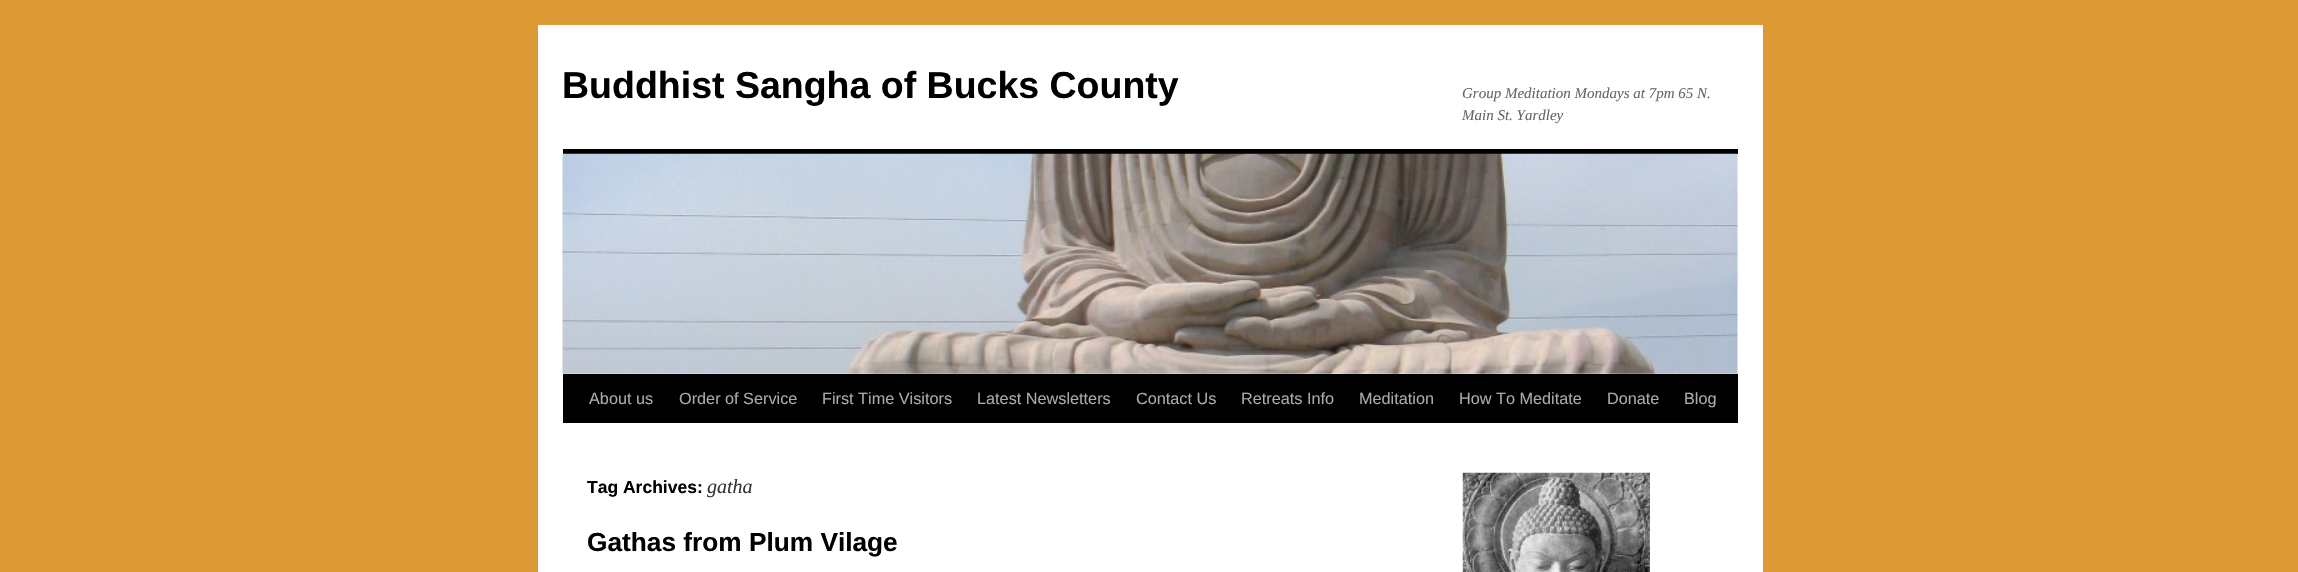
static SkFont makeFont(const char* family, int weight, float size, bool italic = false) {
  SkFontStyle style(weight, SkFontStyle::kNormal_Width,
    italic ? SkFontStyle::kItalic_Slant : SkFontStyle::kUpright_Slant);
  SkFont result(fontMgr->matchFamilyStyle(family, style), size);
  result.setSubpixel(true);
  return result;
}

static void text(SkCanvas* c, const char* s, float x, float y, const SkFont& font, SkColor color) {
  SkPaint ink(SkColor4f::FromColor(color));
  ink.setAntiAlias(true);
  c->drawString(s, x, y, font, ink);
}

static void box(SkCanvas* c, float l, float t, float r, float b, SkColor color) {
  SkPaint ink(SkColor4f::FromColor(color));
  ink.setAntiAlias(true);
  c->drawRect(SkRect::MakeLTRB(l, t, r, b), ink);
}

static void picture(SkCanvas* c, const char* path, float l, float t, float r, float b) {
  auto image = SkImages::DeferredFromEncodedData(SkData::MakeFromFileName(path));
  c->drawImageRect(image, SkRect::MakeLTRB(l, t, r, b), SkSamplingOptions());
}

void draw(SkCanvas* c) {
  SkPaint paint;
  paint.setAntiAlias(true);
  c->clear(0xffdd9933);
  box(c, 538, 25, 1763, 572, 0xffffffff);
  SkFont face1 = makeFont("Liberation Sans", 700, 37.5f);
  text(c, "Buddhist Sangha of Bucks County", 562, 98, face1, 0xff000000);
  SkFont face2 = makeFont("Liberation Serif", 400, 15, true);
  text(c, "Group Meditation Mondays at 7pm 65 N.", 1462, 98, face2, 0xff666666);
  text(c, "Main St. Yardley", 1462, 120, face2, 0xff666666);
  box(c, 563, 149, 1738, 154, 0xff000000);
  box(c, 563, 374, 1738, 423, 0xff000000);
  picture(c, "img_01.png", 562, 153, 1738, 374);
  SkFont face3 = makeFont("Liberation Sans", 400, 16.25f);
  text(c, "About us", 589, 404, face3, 0xffaaaaaa);
  text(c, "Order of Service", 679, 404, face3, 0xffaaaaaa);
  text(c, "First Time Visitors", 822, 404, face3, 0xffaaaaaa);
  text(c, "Latest Newsletters", 977, 404, face3, 0xffaaaaaa);
  text(c, "Contact Us", 1136, 404, face3, 0xffaaaaaa);
  text(c, "Retreats Info", 1241, 404, face3, 0xffaaaaaa);
  text(c, "Meditation", 1359, 404, face3, 0xffaaaaaa);
  text(c, "How To Meditate", 1459, 404, face3, 0xffaaaaaa);
  text(c, "Donate", 1607, 404, face3, 0xffaaaaaa);
  text(c, "Blog", 1684, 404, face3, 0xffaaaaaa);
  SkFont face4 = makeFont("Liberation Sans", 700, 17.5f);
  text(c, "Tag Archives:", 587, 493, face4, 0xff000000);
  SkFont face5 = makeFont("Liberation Serif", 400, 20, true);
  text(c, "gatha", 707, 493, face5, 0xff333333);
  SkFont face6 = makeFont("Liberation Sans", 700, 26.25f);
  text(c, "Gathas from Plum Vilage", 587, 551, face6, 0xff000000);
  picture(c, "img_02.png", 1462, 472, 1650, 572);
}
